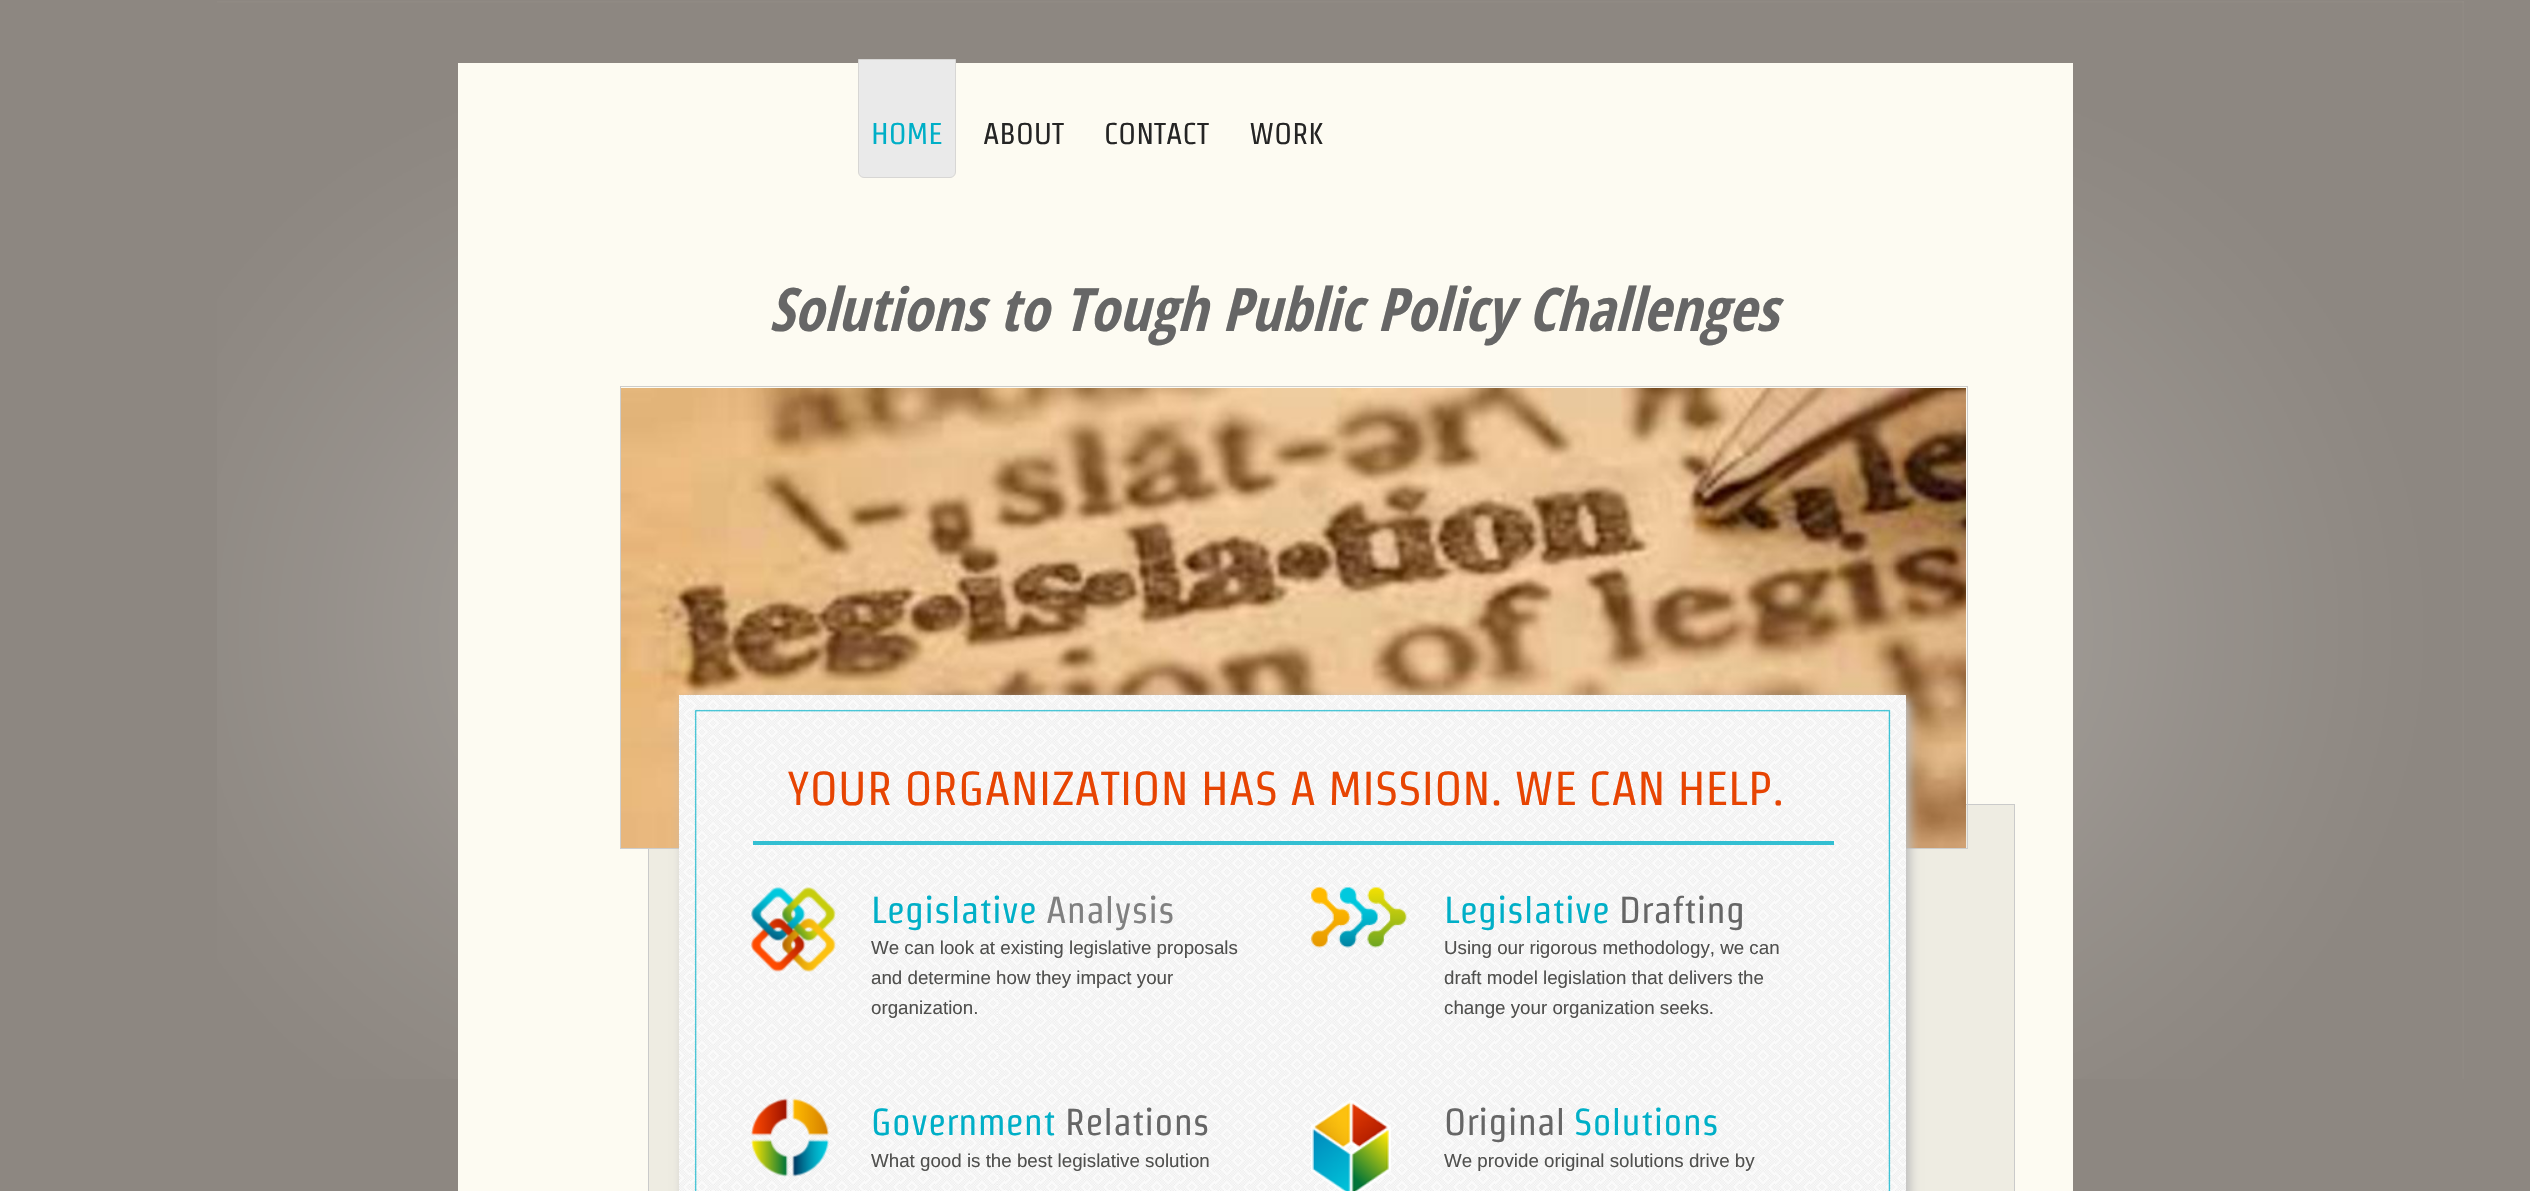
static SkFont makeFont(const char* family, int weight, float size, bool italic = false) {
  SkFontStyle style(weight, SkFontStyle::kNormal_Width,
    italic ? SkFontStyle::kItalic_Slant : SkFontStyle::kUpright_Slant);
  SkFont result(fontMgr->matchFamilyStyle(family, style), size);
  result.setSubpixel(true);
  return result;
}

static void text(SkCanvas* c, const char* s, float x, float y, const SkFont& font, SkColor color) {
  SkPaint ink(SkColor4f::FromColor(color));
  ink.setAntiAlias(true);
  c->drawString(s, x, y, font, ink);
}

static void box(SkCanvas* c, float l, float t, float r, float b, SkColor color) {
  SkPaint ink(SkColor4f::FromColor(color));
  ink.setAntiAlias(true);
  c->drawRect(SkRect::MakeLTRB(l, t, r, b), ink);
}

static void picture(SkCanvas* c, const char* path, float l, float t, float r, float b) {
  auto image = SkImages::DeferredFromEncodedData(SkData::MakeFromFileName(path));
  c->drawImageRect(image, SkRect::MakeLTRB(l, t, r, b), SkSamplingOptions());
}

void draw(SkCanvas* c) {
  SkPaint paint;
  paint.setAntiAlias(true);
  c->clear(0xff8d8781);
  picture(c, "img_01.png", 217, 1, 2464, 1079);
  box(c, 458, 63, 2073, 1191, 0xfffdfbf2);
  paint.setColor(0xffeaeaea);
  c->drawPath(SkPathBuilder().moveTo(858.5f, 59.5f).lineTo(955.5f, 59.5f).lineTo(955.5f, 172).cubicTo(955.5f, 175, 953, 177.5f, 950, 177.5f).lineTo(864, 177.5f).cubicTo(861, 177.5f, 858.5f, 175, 858.5f, 172).close().detach(), paint);
  paint.setStyle(SkPaint::kStroke_Style);
  paint.setStrokeWidth(1);
  paint.setColor(0xffd7d6d4);
  c->drawPath(SkPathBuilder().moveTo(858.5f, 59.5f).lineTo(955.5f, 59.5f).lineTo(955.5f, 172).cubicTo(955.5f, 175, 953, 177.5f, 950, 177.5f).lineTo(864, 177.5f).cubicTo(861, 177.5f, 858.5f, 175, 858.5f, 172).close().detach(), paint);
  SkFont face1 = makeFont("Strait", 400, 30);
  text(c, "HOME", 871, 144, face1, 0xff00afc7);
  text(c, "ABOUT", 983, 144, face1, 0xff252525);
  text(c, "CONTACT", 1104, 144, face1, 0xff252525);
  text(c, "WORK", 1249, 144, face1, 0xff252525);
  SkFont face2 = makeFont("Open Sans Condensed", 700, 60, true);
  text(c, "Solutions to Tough Public Policy Challenges", 769, 331, face2, 0xff666666);
  paint.setStyle(SkPaint::kFill_Style);
  paint.setColor(0xffeeece2);
  c->drawRect(SkRect::MakeLTRB(648.5f, 804.5f, 2014.5f, 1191.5f), paint);
  paint.setStyle(SkPaint::kStroke_Style);
  paint.setColor(0xffcacaca);
  c->drawRect(SkRect::MakeLTRB(648.5f, 804.5f, 2014.5f, 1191.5f), paint);
  paint.setColor(0xffcdcdcc);
  c->drawRect(SkRect::MakeLTRB(620.5f, 386.5f, 1967.5f, 848.5f), paint);
  picture(c, "img_02.png", 621, 388, 1966, 848);
  paint.setStyle(SkPaint::kFill_Style);
  paint.setColor(0xffbbbbbb);
  paint.setMaskFilter(SkMaskFilter::MakeBlur(kNormal_SkBlurStyle, 5));
  c->drawRect(SkRect::MakeLTRB(683, 699, 1910, 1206), paint);
  paint.setMaskFilter(nullptr);
  picture(c, "img_03.png", 679, 695, 1906, 1191);
  SkFont face3 = makeFont("Strait", 400, 47.5f);
  text(c, "YOUR ORGANIZATION HAS A MISSION. WE CAN HELP.", 787, 805, face3, 0xffe74402);
  box(c, 753, 841, 1834, 845, 0xff33bfd2);
  picture(c, "img_04.png", 751, 887, 836, 972);
  SkFont face4 = makeFont("Strait", 400, 37.5f);
  text(c, "Legislative", 871, 923, face4, 0xff00afc7);
  text(c, "Analysis", 1046, 923, face4, 0xff808080);
  SkFont face5 = makeFont("Liberation Sans", 400, 18.75f);
  text(c, "We can look at existing legislative proposals", 871, 954, face5, 0xff50504e);
  text(c, "and determine how they impact your", 871, 984, face5, 0xff50504e);
  text(c, "organization.", 871, 1014, face5, 0xff50504e);
  picture(c, "img_05.png", 1311, 887, 1407, 948);
  text(c, "Legislative", 1444, 923, face4, 0xff00afc7);
  text(c, "Drafting", 1619, 923, face4, 0xff666666);
  text(c, "Using our rigorous methodology, we can", 1444, 954, face5, 0xff50504e);
  text(c, "draft model legislation that delivers the", 1444, 984, face5, 0xff50504e);
  text(c, "change your organization seeks.", 1444, 1014, face5, 0xff50504e);
  picture(c, "img_06.png", 751, 1098, 829, 1177);
  text(c, "Government", 871, 1135, face4, 0xff00afc7);
  text(c, "Relations", 1065, 1135, face4, 0xff666666);
  text(c, "What good is the best legislative solution", 871, 1167, face5, 0xff50504e);
  picture(c, "img_07.png", 1311, 1100, 1391, 1191);
  text(c, "Original", 1444, 1135, face4, 0xff666666);
  text(c, "Solutions", 1574, 1135, face4, 0xff00afc7);
  text(c, "We provide original solutions drive by", 1444, 1167, face5, 0xff50504e);
}
